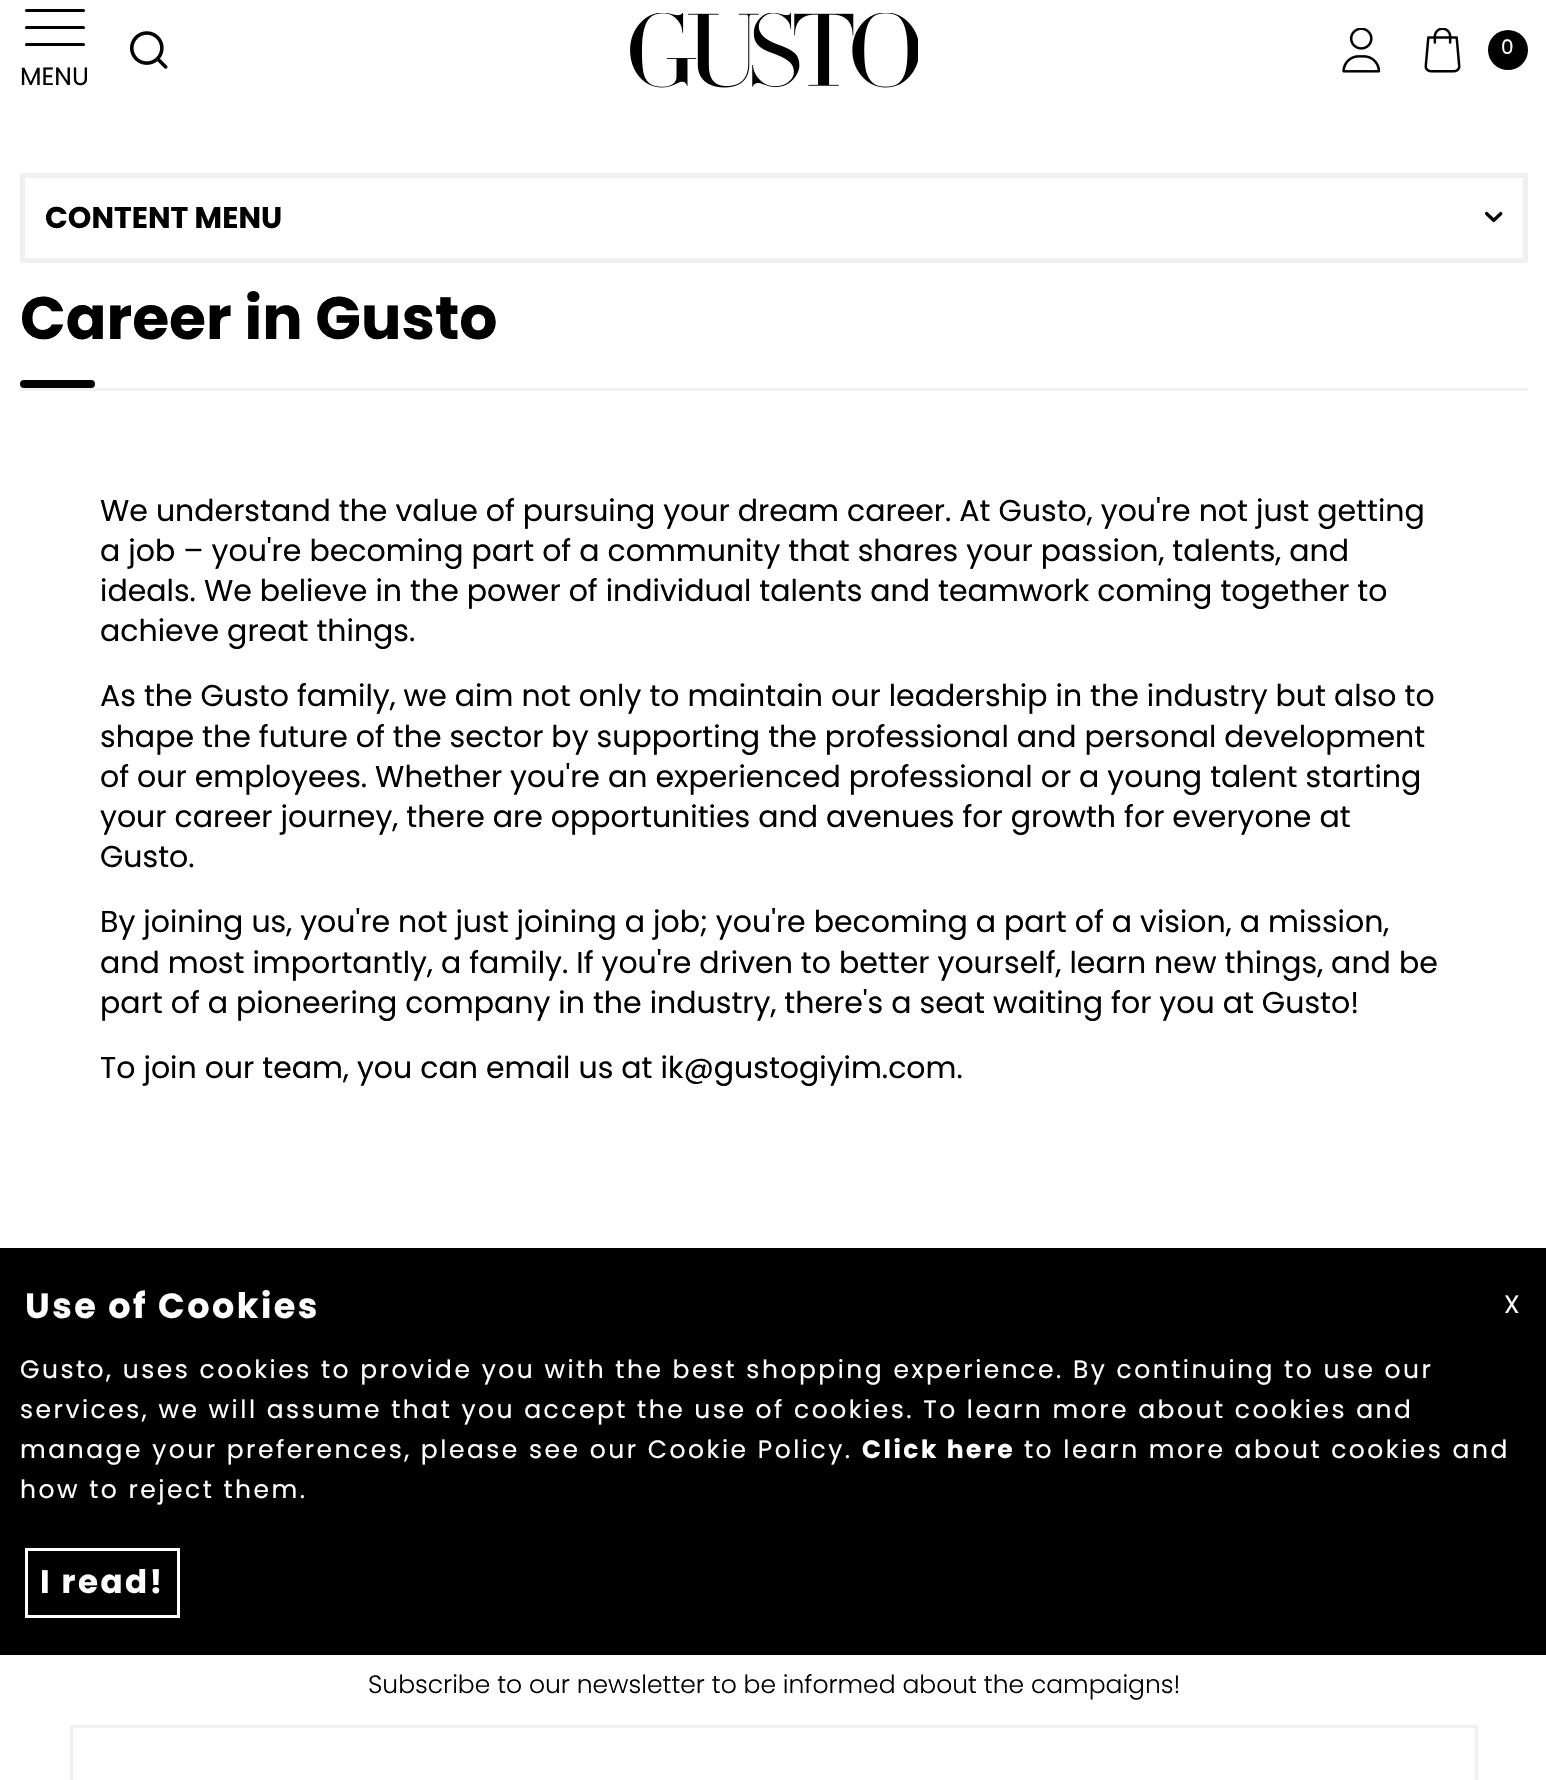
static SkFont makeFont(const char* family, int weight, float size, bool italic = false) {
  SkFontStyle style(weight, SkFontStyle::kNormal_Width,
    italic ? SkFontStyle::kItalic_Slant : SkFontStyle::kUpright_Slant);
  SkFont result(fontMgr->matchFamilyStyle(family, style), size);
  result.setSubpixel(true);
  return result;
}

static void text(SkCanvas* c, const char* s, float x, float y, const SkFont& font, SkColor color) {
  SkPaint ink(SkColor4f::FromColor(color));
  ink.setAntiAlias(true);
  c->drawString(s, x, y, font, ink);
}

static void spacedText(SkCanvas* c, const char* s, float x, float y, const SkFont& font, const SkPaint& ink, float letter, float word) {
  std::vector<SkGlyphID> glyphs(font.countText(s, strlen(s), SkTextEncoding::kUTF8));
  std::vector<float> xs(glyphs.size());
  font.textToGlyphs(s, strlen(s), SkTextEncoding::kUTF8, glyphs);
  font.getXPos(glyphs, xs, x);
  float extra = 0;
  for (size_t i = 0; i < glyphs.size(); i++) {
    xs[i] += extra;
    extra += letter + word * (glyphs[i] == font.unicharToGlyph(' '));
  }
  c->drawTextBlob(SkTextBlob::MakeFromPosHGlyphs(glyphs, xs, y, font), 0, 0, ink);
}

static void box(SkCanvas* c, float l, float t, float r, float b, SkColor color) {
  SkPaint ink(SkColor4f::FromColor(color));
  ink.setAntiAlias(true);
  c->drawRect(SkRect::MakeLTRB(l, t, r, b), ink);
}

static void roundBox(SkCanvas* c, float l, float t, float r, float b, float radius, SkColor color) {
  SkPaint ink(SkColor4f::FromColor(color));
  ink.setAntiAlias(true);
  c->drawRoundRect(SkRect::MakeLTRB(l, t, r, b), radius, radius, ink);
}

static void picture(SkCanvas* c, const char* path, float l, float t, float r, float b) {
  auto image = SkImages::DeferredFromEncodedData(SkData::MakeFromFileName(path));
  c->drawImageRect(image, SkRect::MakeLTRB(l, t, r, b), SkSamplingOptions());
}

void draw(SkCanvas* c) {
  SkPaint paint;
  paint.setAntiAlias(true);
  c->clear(0xffffffff);
  picture(c, "img_01.png", 630, 13, 918, 88);
  picture(c, "img_02.png", 1342, 28, 1381, 73);
  picture(c, "img_03.png", 1424, 28, 1461, 73);
  paint.setColor(0xff000000);
  c->drawCircle(1508, 50, 20, paint);
  SkFont face1 = makeFont("Poppins", 400, 20);
  text(c, "0", 1501, 54, face1, 0xffffffff);
  picture(c, "img_04.png", 130, 31, 168, 69);
  roundBox(c, 25, 9, 85, 12, 1.5f, 0xff000000);
  roundBox(c, 25, 26, 85, 29, 1.5f, 0xff000000);
  roundBox(c, 25, 43, 85, 46, 1.5f, 0xff000000);
  SkFont face2 = makeFont("Poppins", 400, 25);
  text(c, "MENU", 20, 85, face2, 0xff000000);
  paint.setStyle(SkPaint::kStroke_Style);
  paint.setStrokeWidth(5);
  paint.setColor(0xfff0f0f0);
  c->drawRect(SkRect::MakeLTRB(22.5f, 175.5f, 1525.5f, 260.5f), paint);
  SkFont face3 = makeFont("Poppins", 700, 30);
  text(c, "CONTENT MENU", 45, 228, face3, 0xff000000);
  picture(c, "img_05.png", 1485, 211, 1503, 223);
  box(c, 20, 388, 1528, 391, 0xfff0f0f0);
  SkFont face4 = makeFont("Poppins", 700, 60);
  text(c, "Career in Gusto", 20, 339, face4, 0xff000000);
  roundBox(c, 20, 380, 95, 388, 4, 0xff000000);
  SkFont face5 = makeFont("Poppins", 400, 30);
  text(c, "We understand the value of pursuing your dream career. At Gusto, you're not just getting", 100, 521, face5, 0xff000000);
  text(c, "a job – you're becoming part of a community that shares your passion, talents, and", 100, 561, face5, 0xff000000);
  text(c, "ideals. We believe in the power of individual talents and teamwork coming together to", 100, 601, face5, 0xff000000);
  text(c, "achieve great things.", 100, 641, face5, 0xff000000);
  text(c, "As the Gusto family, we aim not only to maintain our leadership in the industry but also to", 100, 706, face5, 0xff000000);
  text(c, "shape the future of the sector by supporting the professional and personal development", 100, 747, face5, 0xff000000);
  text(c, "of our employees. Whether you're an experienced professional or a young talent starting", 100, 787, face5, 0xff000000);
  text(c, "your career journey, there are opportunities and avenues for growth for everyone at", 100, 827, face5, 0xff000000);
  text(c, "Gusto.", 100, 867, face5, 0xff000000);
  text(c, "By joining us, you're not just joining a job; you're becoming a part of a vision, a mission,", 100, 932, face5, 0xff000000);
  text(c, "and most importantly, a family. If you're driven to better yourself, learn new things, and be", 100, 973, face5, 0xff000000);
  text(c, "part of a pioneering company in the industry, there's a seat waiting for you at Gusto!", 100, 1013, face5, 0xff000000);
  text(c, "To join our team, you can email us at ik@gustogiyim.com.", 100, 1078, face5, 0xff000000);
  box(c, 0, 1248, 1546, 1655, 0xff000000);
  SkFont face6 = makeFont("Poppins", 700, 35);
  paint.setStyle(SkPaint::kFill_Style);
  paint.setColor(0xffffffff);
  spacedText(c, "Use of Cookies", 25, 1318, face6, paint, 2.5f, 0);
  spacedText(c, "X", 1504, 1313, face2, paint, 2.5f, 0);
  spacedText(c, "Gusto, uses cookies to provide you with the best shopping experience. By continuing to use our", 20, 1378, face2, paint, 2.5f, 0);
  spacedText(c, "services, we will assume that you accept the use of cookies. To learn more about cookies and", 20, 1418, face2, paint, 2.5f, 0);
  spacedText(c, "manage your preferences, please see our Cookie Policy.", 20, 1458, face2, paint, 2.5f, 0);
  SkFont face7 = makeFont("Poppins", 700, 25);
  spacedText(c, "Click here", 862, 1458, face7, paint, 2.5f, 0);
  spacedText(c, "to learn more about cookies and", 1024, 1458, face2, paint, 2.5f, 0);
  spacedText(c, "how to reject them.", 20, 1498, face2, paint, 2.5f, 0);
  paint.setStyle(SkPaint::kStroke_Style);
  paint.setStrokeWidth(3);
  c->drawRect(SkRect::MakeLTRB(26.5f, 1549.5f, 178.5f, 1616.5f), paint);
  SkFont face8 = makeFont("Poppins", 700, 32.5f);
  paint.setStyle(SkPaint::kFill_Style);
  spacedText(c, "I read!", 40, 1593, face8, paint, 2.5f, 0);
  SkFont face9 = makeFont("Poppins", 300, 25);
  text(c, "Subscribe to our newsletter to be informed about the campaigns!", 368, 1693, face9, 0xff000000);
  paint.setStyle(SkPaint::kStroke_Style);
  paint.setColor(0xfff0f0f0);
  c->drawRect(SkRect::MakeLTRB(71.5f, 1726.5f, 1476.5f, 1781.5f), paint);
}
